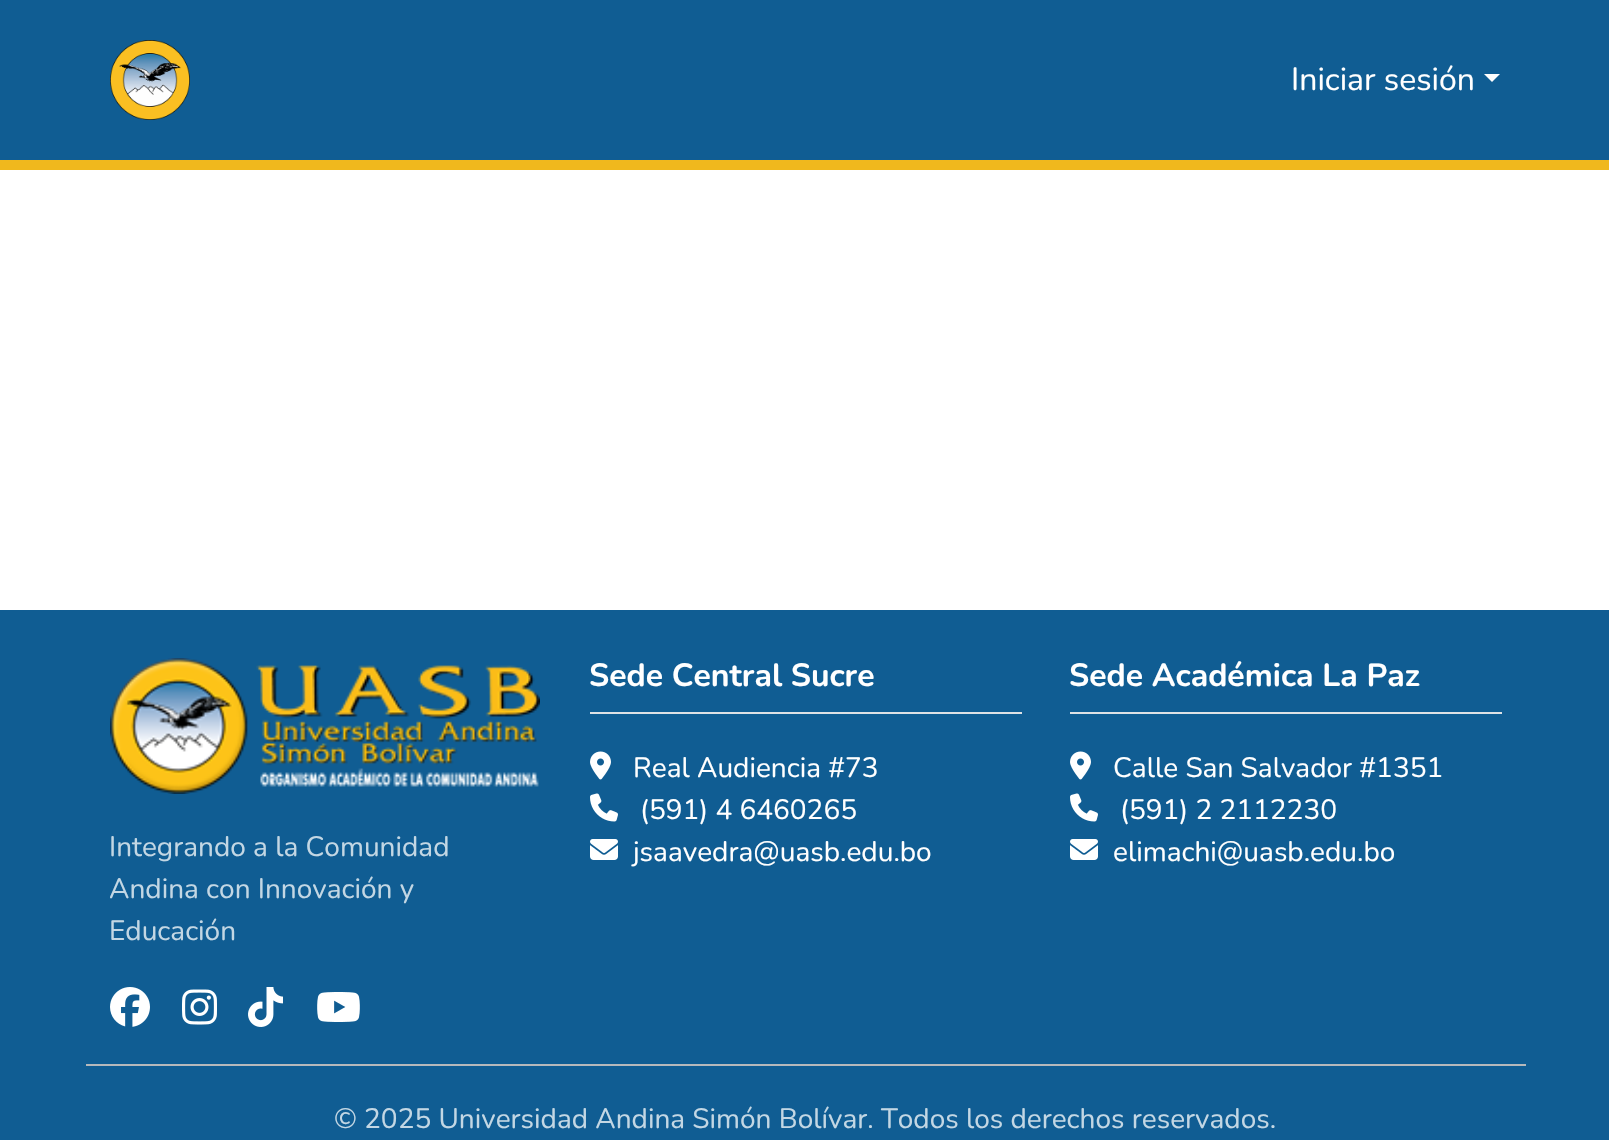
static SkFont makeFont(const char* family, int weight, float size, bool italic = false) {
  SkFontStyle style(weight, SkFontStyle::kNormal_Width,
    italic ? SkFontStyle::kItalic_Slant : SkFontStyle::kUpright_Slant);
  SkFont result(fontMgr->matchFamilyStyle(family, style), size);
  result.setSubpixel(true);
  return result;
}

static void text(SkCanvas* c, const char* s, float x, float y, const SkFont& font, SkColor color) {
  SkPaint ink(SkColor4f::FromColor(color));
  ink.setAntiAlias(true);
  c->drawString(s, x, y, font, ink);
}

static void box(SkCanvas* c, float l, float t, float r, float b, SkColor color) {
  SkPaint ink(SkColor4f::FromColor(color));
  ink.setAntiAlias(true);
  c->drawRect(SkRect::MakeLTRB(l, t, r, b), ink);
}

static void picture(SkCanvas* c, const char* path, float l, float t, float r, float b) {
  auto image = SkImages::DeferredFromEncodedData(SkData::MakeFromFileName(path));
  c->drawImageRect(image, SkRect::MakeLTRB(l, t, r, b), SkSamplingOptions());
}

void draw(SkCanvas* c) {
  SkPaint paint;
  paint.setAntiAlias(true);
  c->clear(0xffffffff);
  box(c, 0, 160, 1609, 170, 0xfff0b81d);
  box(c, 0, 0, 1609, 160, 0xff105d93);
  picture(c, "img_01.png", 110, 40, 190, 120);
  SkFont face1 = makeFont("Nunito", 400, 32);
  text(c, "Iniciar sesión", 1291, 90, face1, 0xffffffff);
  paint.setColor(0xffffffff);
  c->drawPath(SkPathBuilder().moveTo(1484, 74).lineTo(1500, 74).lineTo(1492, 82).close().detach(), paint);
  box(c, 0, 610, 1609, 1140, 0xff105d93);
  box(c, 590, 712, 1022, 714, 0xffdee2e6);
  SkFont face2 = makeFont("Nunito", 700, 32);
  text(c, "Sede Central Sucre", 589, 686, face2, 0xffffffff);
  picture(c, "img_02.png", 590, 751, 611, 780);
  SkFont face3 = makeFont("Nunito", 400, 28);
  text(c, "Real Audiencia #73", 633, 777, face3, 0xffffffff);
  picture(c, "img_03.png", 590, 793, 618, 822);
  text(c, "(591) 4 6460265", 640, 819, face3, 0xffffffff);
  picture(c, "img_04.png", 590, 839, 618, 860);
  text(c, "jsaavedra@uasb.edu.bo", 633, 861, face3, 0xffffffff);
  box(c, 1070, 712, 1502, 714, 0xffdee2e6);
  text(c, "Sede Académica La Paz", 1069, 686, face2, 0xffffffff);
  picture(c, "img_02.png", 1070, 751, 1091, 780);
  text(c, "Calle San Salvador #1351", 1113, 777, face3, 0xffffffff);
  picture(c, "img_03.png", 1070, 793, 1098, 822);
  text(c, "(591) 2 2112230", 1120, 819, face3, 0xffffffff);
  picture(c, "img_04.png", 1070, 839, 1098, 860);
  text(c, "elimachi@uasb.edu.bo", 1113, 861, face3, 0xffffffff);
  picture(c, "img_05.png", 110, 658, 540, 794);
  text(c, "Integrando a la Comunidad", 109, 856, face3, 0xffc3d7e4);
  text(c, "Andina con Innovación y", 109, 898, face3, 0xffc3d7e4);
  text(c, "Educación", 109, 940, face3, 0xffc3d7e4);
  picture(c, "img_06.png", 110, 987, 150, 1027);
  picture(c, "img_07.png", 182, 989, 217, 1025);
  picture(c, "img_08.png", 248, 987, 283, 1027);
  picture(c, "img_09.png", 317, 992, 360, 1022);
  box(c, 86, 1064, 1526, 1066, 0xffb6b9bc);
  text(c, "© 2025 Universidad Andina Simón Bolívar. Todos los derechos reservados.", 334, 1128, face3, 0xffc3d7e4);
}
